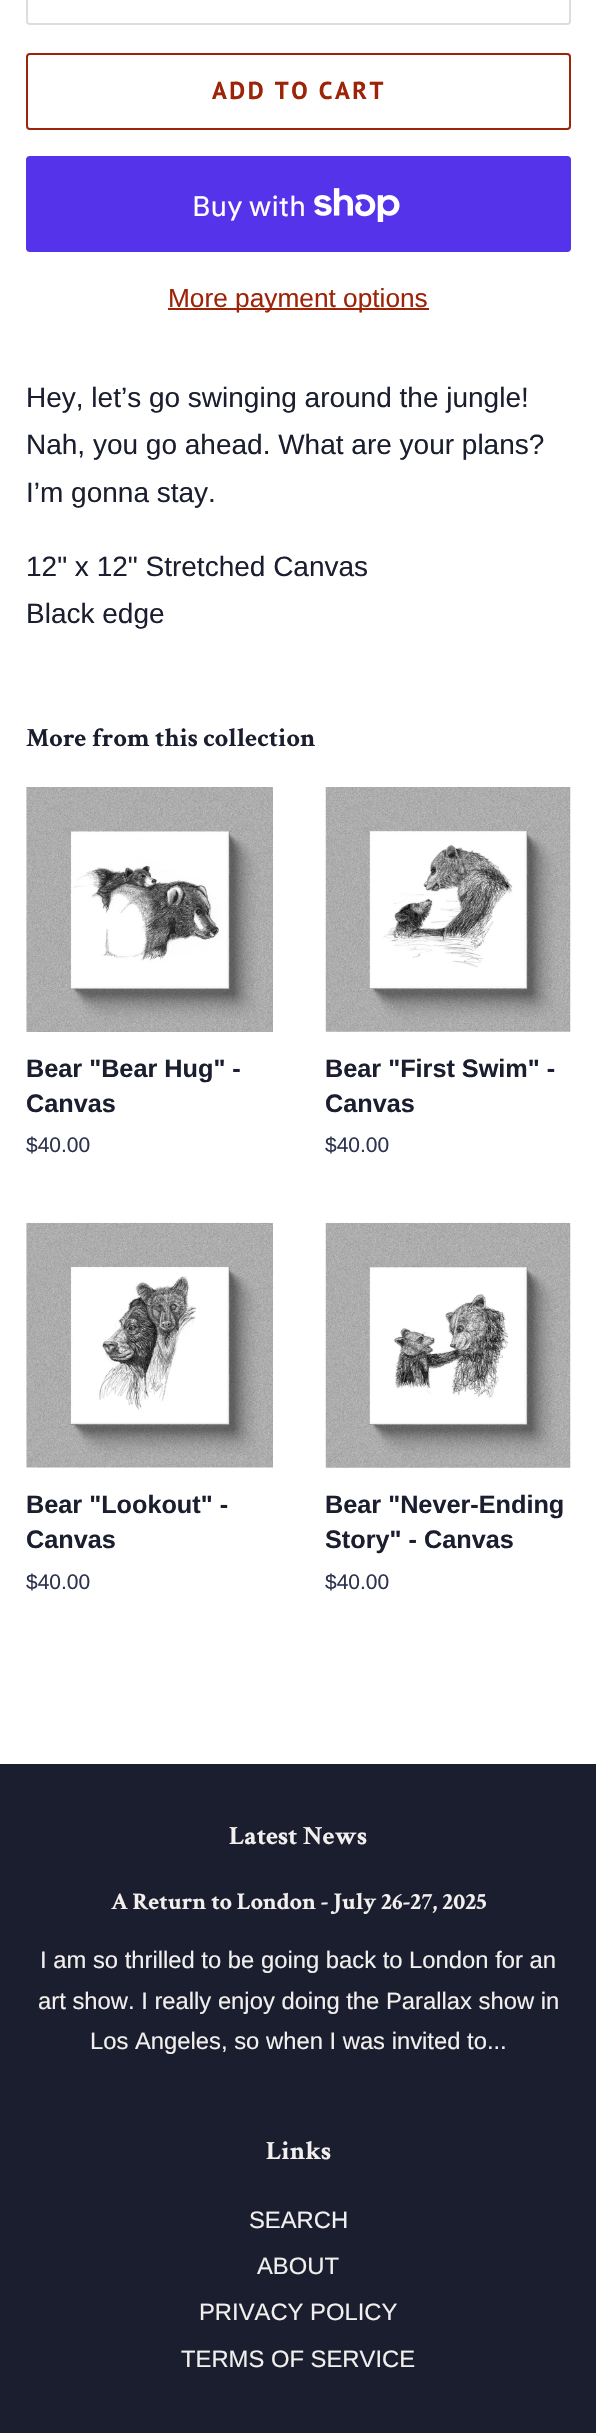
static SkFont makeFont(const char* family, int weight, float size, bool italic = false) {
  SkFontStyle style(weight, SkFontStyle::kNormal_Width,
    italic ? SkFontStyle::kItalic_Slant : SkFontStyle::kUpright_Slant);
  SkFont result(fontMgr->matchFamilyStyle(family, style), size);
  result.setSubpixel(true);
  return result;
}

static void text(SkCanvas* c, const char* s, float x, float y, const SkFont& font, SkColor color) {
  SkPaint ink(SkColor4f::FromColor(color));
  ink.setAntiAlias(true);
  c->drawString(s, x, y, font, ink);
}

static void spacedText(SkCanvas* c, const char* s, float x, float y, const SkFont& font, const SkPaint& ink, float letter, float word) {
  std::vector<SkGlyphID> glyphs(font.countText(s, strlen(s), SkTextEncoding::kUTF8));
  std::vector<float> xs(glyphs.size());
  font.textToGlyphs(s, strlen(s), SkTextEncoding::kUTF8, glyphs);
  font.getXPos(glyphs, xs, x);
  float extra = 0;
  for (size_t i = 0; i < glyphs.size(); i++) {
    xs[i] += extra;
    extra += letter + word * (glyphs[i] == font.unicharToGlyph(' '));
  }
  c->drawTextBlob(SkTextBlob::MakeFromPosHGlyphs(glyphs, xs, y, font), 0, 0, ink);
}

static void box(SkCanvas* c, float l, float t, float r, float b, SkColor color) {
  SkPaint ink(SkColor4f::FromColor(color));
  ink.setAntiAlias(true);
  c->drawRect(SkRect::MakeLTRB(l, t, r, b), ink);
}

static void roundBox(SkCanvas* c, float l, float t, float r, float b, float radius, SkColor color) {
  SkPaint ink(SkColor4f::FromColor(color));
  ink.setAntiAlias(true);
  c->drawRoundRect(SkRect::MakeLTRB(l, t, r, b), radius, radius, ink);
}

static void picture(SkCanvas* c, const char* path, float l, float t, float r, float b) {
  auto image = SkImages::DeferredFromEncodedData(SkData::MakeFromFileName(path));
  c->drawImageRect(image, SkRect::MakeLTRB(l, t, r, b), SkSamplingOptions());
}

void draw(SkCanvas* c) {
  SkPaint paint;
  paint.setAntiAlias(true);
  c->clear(0xffffffff);
  paint.setStyle(SkPaint::kStroke_Style);
  paint.setStrokeWidth(2);
  paint.setColor(0xffdddde0);
  c->drawRoundRect(SkRect::MakeLTRB(27, -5, 570, 24), 3, 3, paint);
  paint.setColor(0xff9d2408);
  c->drawRoundRect(SkRect::MakeLTRB(27, 54, 570, 129), 3, 3, paint);
  SkFont face1 = makeFont("PT Sans", 700, 24.5f);
  paint.setStyle(SkPaint::kFill_Style);
  spacedText(c, "ADD TO CART", 212, 99, face1, paint, 2.5f, 0);
  roundBox(c, 26, 156, 571, 252, 4, 0xff5433eb);
  SkFont face2 = makeFont("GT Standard", 400, 28);
  text(c, "Buy with", 192, 216, face2, 0xffffffff);
  picture(c, "img_01.png", 314, 188, 400, 222);
  box(c, 168, 308, 429, 310, 0xff9d2408);
  SkFont face3 = makeFont("Liberation Sans", 400, 26.25f);
  text(c, "More payment options", 168, 307, face3, 0xff9d2408);
  SkFont face4 = makeFont("Liberation Sans", 400, 28);
  text(c, "Hey, let’s go swinging around the jungle!", 26, 407, face4, 0xff1b1e2f);
  text(c, "Nah, you go ahead. What are your plans?", 26, 454, face4, 0xff1b1e2f);
  text(c, "I’m gonna stay.", 26, 502, face4, 0xff1b1e2f);
  text(c, "12\" x 12\" Stretched Canvas", 26, 576, face4, 0xff1b1e2f);
  text(c, "Black edge", 26, 623, face4, 0xff1b1e2f);
  SkFont face5 = makeFont("Crimson Text", 700, 26.25f);
  text(c, "More from this collection", 26, 746, face5, 0xff1b1e2f);
  picture(c, "img_02.png", 26, 787, 273, 1032);
  SkFont face6 = makeFont("Liberation Sans", 700, 25.25f);
  text(c, "Bear \"Bear Hug\" -", 26, 1077, face6, 0xff1b1e2f);
  text(c, "Canvas", 26, 1112, face6, 0xff1b1e2f);
  SkFont face7 = makeFont("Liberation Sans", 400, 21);
  text(c, "$40.00", 26, 1152, face7, 0xff2e334f);
  picture(c, "img_03.png", 325, 787, 571, 1032);
  text(c, "Bear \"First Swim\" -", 325, 1077, face6, 0xff1b1e2f);
  text(c, "Canvas", 325, 1112, face6, 0xff1b1e2f);
  text(c, "$40.00", 325, 1152, face7, 0xff2e334f);
  picture(c, "img_04.png", 26, 1222, 273, 1468);
  text(c, "Bear \"Lookout\" -", 26, 1513, face6, 0xff1b1e2f);
  text(c, "Canvas", 26, 1548, face6, 0xff1b1e2f);
  text(c, "$40.00", 26, 1589, face7, 0xff2e334f);
  picture(c, "img_05.png", 325, 1222, 571, 1468);
  text(c, "Bear \"Never-Ending", 325, 1513, face6, 0xff1b1e2f);
  text(c, "Story\" - Canvas", 325, 1548, face6, 0xff1b1e2f);
  text(c, "$40.00", 325, 1589, face7, 0xff2e334f);
  box(c, 0, 1764, 596, 2433, 0xff1b1e2f);
  text(c, "Latest News", 229, 1844, face5, 0xfff2f0ee);
  SkFont face8 = makeFont("Crimson Text", 700, 23.8f);
  text(c, "A Return to London - July 26-27, 2025", 111, 1909, face8, 0xfff2f0ee);
  SkFont face9 = makeFont("Liberation Sans", 400, 23.8f);
  text(c, "I am so thrilled to be going back to London for an", 40, 1968, face9, 0xfff2f0ee);
  text(c, "art show. I really enjoy doing the Parallax show in", 38, 2009, face9, 0xfff2f0ee);
  text(c, "Los Angeles, so when I was invited to...", 90, 2049, face9, 0xfff2f0ee);
  text(c, "Links", 266, 2159, face5, 0xfff2f0ee);
  text(c, "SEARCH", 249, 2228, face9, 0xfff2f0ee);
  text(c, "ABOUT", 257, 2274, face9, 0xfff2f0ee);
  text(c, "PRIVACY POLICY", 199, 2320, face9, 0xfff2f0ee);
  text(c, "TERMS OF SERVICE", 181, 2367, face9, 0xfff2f0ee);
}
